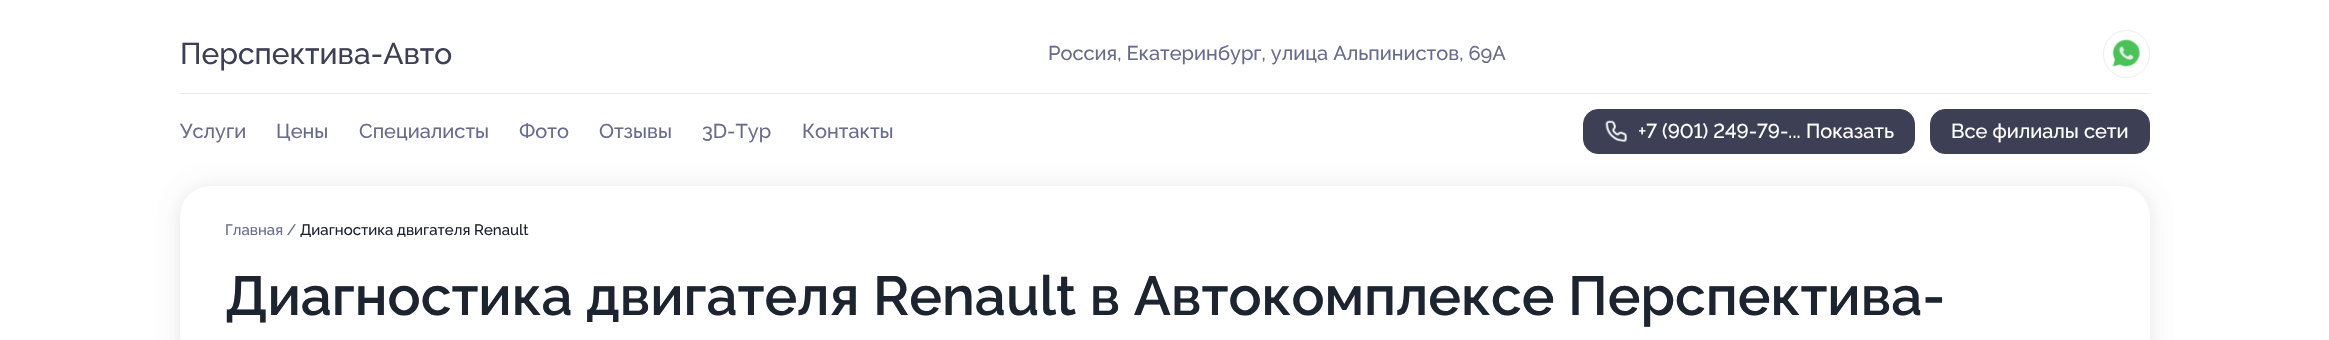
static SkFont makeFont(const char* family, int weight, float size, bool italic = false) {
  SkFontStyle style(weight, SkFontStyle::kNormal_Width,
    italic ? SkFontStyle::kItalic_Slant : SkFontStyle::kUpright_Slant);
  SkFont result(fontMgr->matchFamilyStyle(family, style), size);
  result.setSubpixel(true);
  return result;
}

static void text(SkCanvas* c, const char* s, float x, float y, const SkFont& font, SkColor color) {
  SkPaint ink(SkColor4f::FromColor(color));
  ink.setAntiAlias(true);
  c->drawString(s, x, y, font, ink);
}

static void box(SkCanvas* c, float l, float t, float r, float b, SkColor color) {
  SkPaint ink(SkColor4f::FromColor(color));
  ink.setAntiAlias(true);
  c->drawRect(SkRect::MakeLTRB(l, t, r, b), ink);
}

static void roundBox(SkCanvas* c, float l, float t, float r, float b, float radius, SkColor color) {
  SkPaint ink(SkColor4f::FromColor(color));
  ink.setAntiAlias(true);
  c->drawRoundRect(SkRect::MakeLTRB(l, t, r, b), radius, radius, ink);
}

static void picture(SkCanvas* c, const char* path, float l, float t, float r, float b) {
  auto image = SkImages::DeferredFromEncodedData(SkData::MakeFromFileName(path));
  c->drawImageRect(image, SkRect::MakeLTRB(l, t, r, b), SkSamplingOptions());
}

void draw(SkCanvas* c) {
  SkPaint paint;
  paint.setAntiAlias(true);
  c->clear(0xffffffff);
  box(c, 180, 93, 2150, 94, 0xffececee);
  SkFont face1 = makeFont("Raleway", 500, 30);
  text(c, "Перспектива-Авто", 180, 64, face1, 0xff3d3f55);
  SkFont face2 = makeFont("Raleway", 500, 20);
  text(c, "Россия, Екатеринбург, улица Альпинистов, 69А", 1048, 60, face2, 0xff676b8f);
  paint.setStyle(SkPaint::kStroke_Style);
  paint.setStrokeWidth(1);
  paint.setColor(0xffececee);
  c->drawRoundRect(SkRect::MakeLTRB(2103.5f, 30.5f, 2149.5f, 77.5f), 23, 23, paint);
  picture(c, "img_01.png", 2112, 39, 2140, 67);
  text(c, "Услуги", 180, 138, face2, 0xff676b8f);
  text(c, "Цены", 276, 138, face2, 0xff676b8f);
  text(c, "Специалисты", 359, 138, face2, 0xff676b8f);
  text(c, "Фото", 519, 138, face2, 0xff676b8f);
  text(c, "Отзывы", 599, 138, face2, 0xff676b8f);
  text(c, "3D-Тур", 702, 138, face2, 0xff676b8f);
  text(c, "Контакты", 802, 138, face2, 0xff676b8f);
  paint.setStyle(SkPaint::kFill_Style);
  paint.setColor(0xff3d3f55);
  c->drawRoundRect(SkRect::MakeLTRB(1583.5f, 109.5f, 1914.5f, 153.5f), 14.5f, 14.5f, paint);
  paint.setStyle(SkPaint::kStroke_Style);
  c->drawRoundRect(SkRect::MakeLTRB(1583.5f, 109.5f, 1914.5f, 153.5f), 14.5f, 14.5f, paint);
  picture(c, "img_02.png", 1605, 120, 1627, 142);
  SkFont face3 = makeFont("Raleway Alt", 500, 20);
  text(c, "+7 (901) 249-79-...", 1638, 138, face3, 0xffffffff);
  text(c, "Показать", 1806, 138, face2, 0xffffffff);
  paint.setStyle(SkPaint::kFill_Style);
  c->drawRoundRect(SkRect::MakeLTRB(1930.5f, 109.5f, 2149.5f, 153.5f), 14.5f, 14.5f, paint);
  paint.setStyle(SkPaint::kStroke_Style);
  c->drawRoundRect(SkRect::MakeLTRB(1930.5f, 109.5f, 2149.5f, 153.5f), 14.5f, 14.5f, paint);
  text(c, "Все филиалы сети", 1951, 138, face2, 0xffffffff);
  paint.setStyle(SkPaint::kFill_Style);
  paint.setColor(0x0d000000);
  paint.setMaskFilter(SkMaskFilter::MakeBlur(kNormal_SkBlurStyle, 10));
  c->drawRoundRect(SkRect::MakeLTRB(180, 186, 2150, 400), 30, 30, paint);
  paint.setMaskFilter(nullptr);
  paint.setMaskFilter(SkMaskFilter::MakeBlur(kNormal_SkBlurStyle, 10));
  c->drawRoundRect(SkRect::MakeLTRB(180, 191, 2150, 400), 30, 30, paint);
  paint.setMaskFilter(nullptr);
  roundBox(c, 180, 186, 2150, 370, 30, 0xffffffff);
  SkFont face4 = makeFont("Raleway", 500, 15);
  text(c, "Главная /", 225, 235, face4, 0xff676b8f);
  text(c, "Диагностика двигателя Renault", 300, 235, face4, 0xff1c242f);
  SkFont face5 = makeFont("Raleway", 600, 55);
  text(c, "Диагностика двигателя Renault в Автокомплексе Перспектива-", 225, 315, face5, 0xff1c242f);
}
